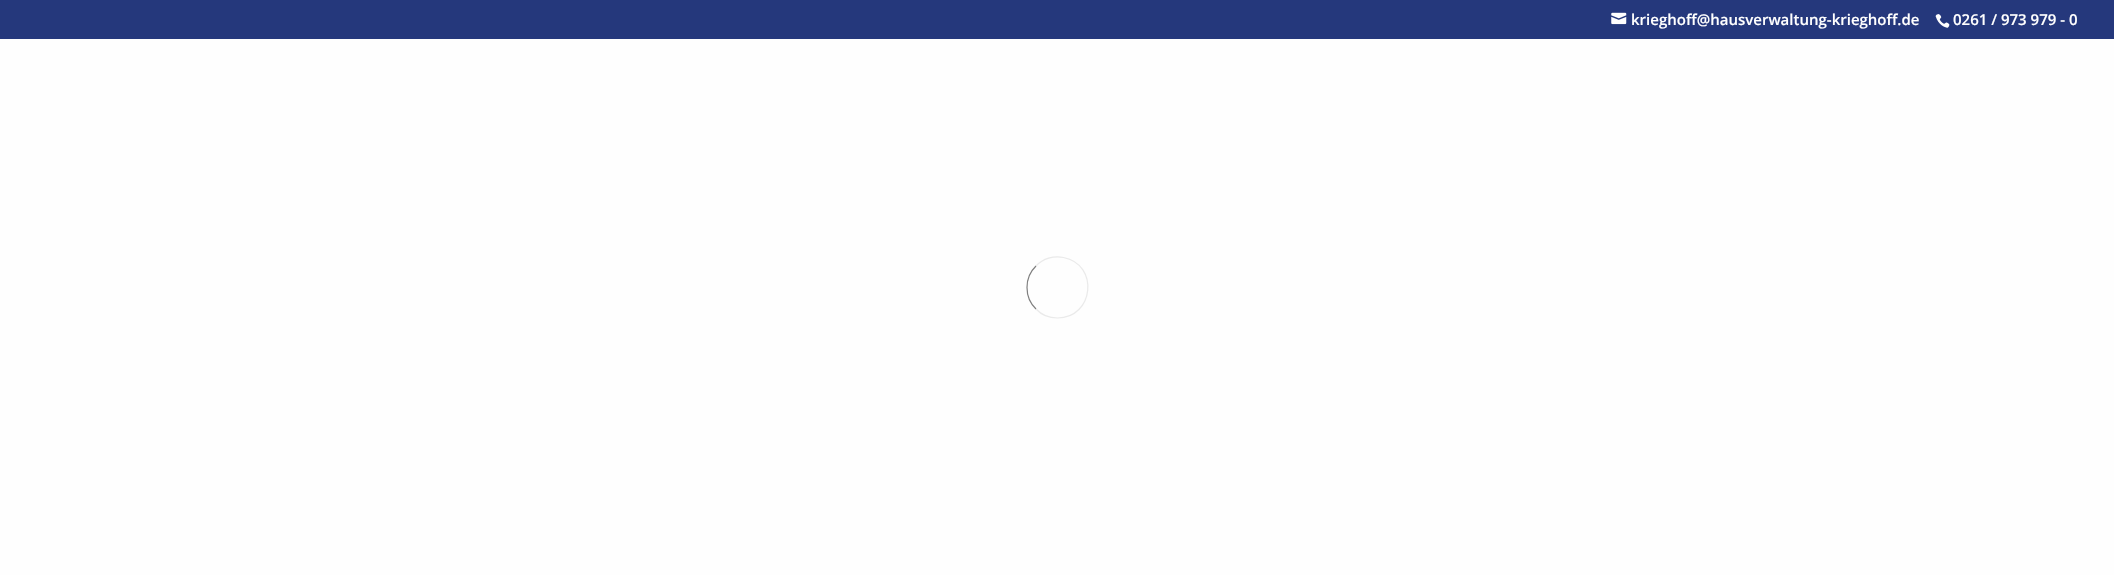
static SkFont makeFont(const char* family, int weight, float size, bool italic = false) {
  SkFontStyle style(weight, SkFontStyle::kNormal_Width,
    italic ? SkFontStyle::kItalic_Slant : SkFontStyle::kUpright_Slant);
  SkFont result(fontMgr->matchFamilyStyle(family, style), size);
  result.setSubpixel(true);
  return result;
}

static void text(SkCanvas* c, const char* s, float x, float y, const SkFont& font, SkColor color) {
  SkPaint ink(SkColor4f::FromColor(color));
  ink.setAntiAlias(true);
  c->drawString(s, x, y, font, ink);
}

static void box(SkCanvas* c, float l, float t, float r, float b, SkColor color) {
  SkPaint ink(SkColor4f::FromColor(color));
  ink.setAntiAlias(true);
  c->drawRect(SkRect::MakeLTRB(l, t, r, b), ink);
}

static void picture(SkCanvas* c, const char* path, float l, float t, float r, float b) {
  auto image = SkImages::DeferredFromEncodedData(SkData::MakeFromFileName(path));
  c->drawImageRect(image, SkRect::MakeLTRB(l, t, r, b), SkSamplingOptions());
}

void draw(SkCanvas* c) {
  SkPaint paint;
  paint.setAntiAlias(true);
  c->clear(0xfffefefe);
  box(c, 0, 0, 2114, 39, 0xff25387c);
  picture(c, "img_01.png", 1611, 12, 1627, 25);
  SkFont face1 = makeFont("Open Sans", 600, 15);
  text(c, "krieghoff@hausverwaltung-krieghoff.de", 1631, 25, face1, 0xffffffff);
  picture(c, "img_02.png", 1935, 14, 1950, 28);
  text(c, "0261 / 973 979 - 0", 1953, 25, face1, 0xffffffff);
  paint.setStyle(SkPaint::kStroke_Style);
  paint.setStrokeWidth(1.2f);
  paint.setColor(0xffeaeaea);
  c->drawPath(SkPathBuilder().moveTo(1036, 266).cubicTo(1043, 258.5f, 1053.5f, 255.5f, 1063.5f, 257.5f).cubicTo(1099.5f, 264.5f, 1094, 318, 1057.5f, 318).cubicTo(1049.5f, 318, 1041.5f, 315, 1036, 309).detach(), paint);
  paint.setColor(0xff7f7f7f);
  c->drawPath(SkPathBuilder().moveTo(1036, 309).cubicTo(1024, 297.5f, 1024, 277.5f, 1036, 266).detach(), paint);
}
